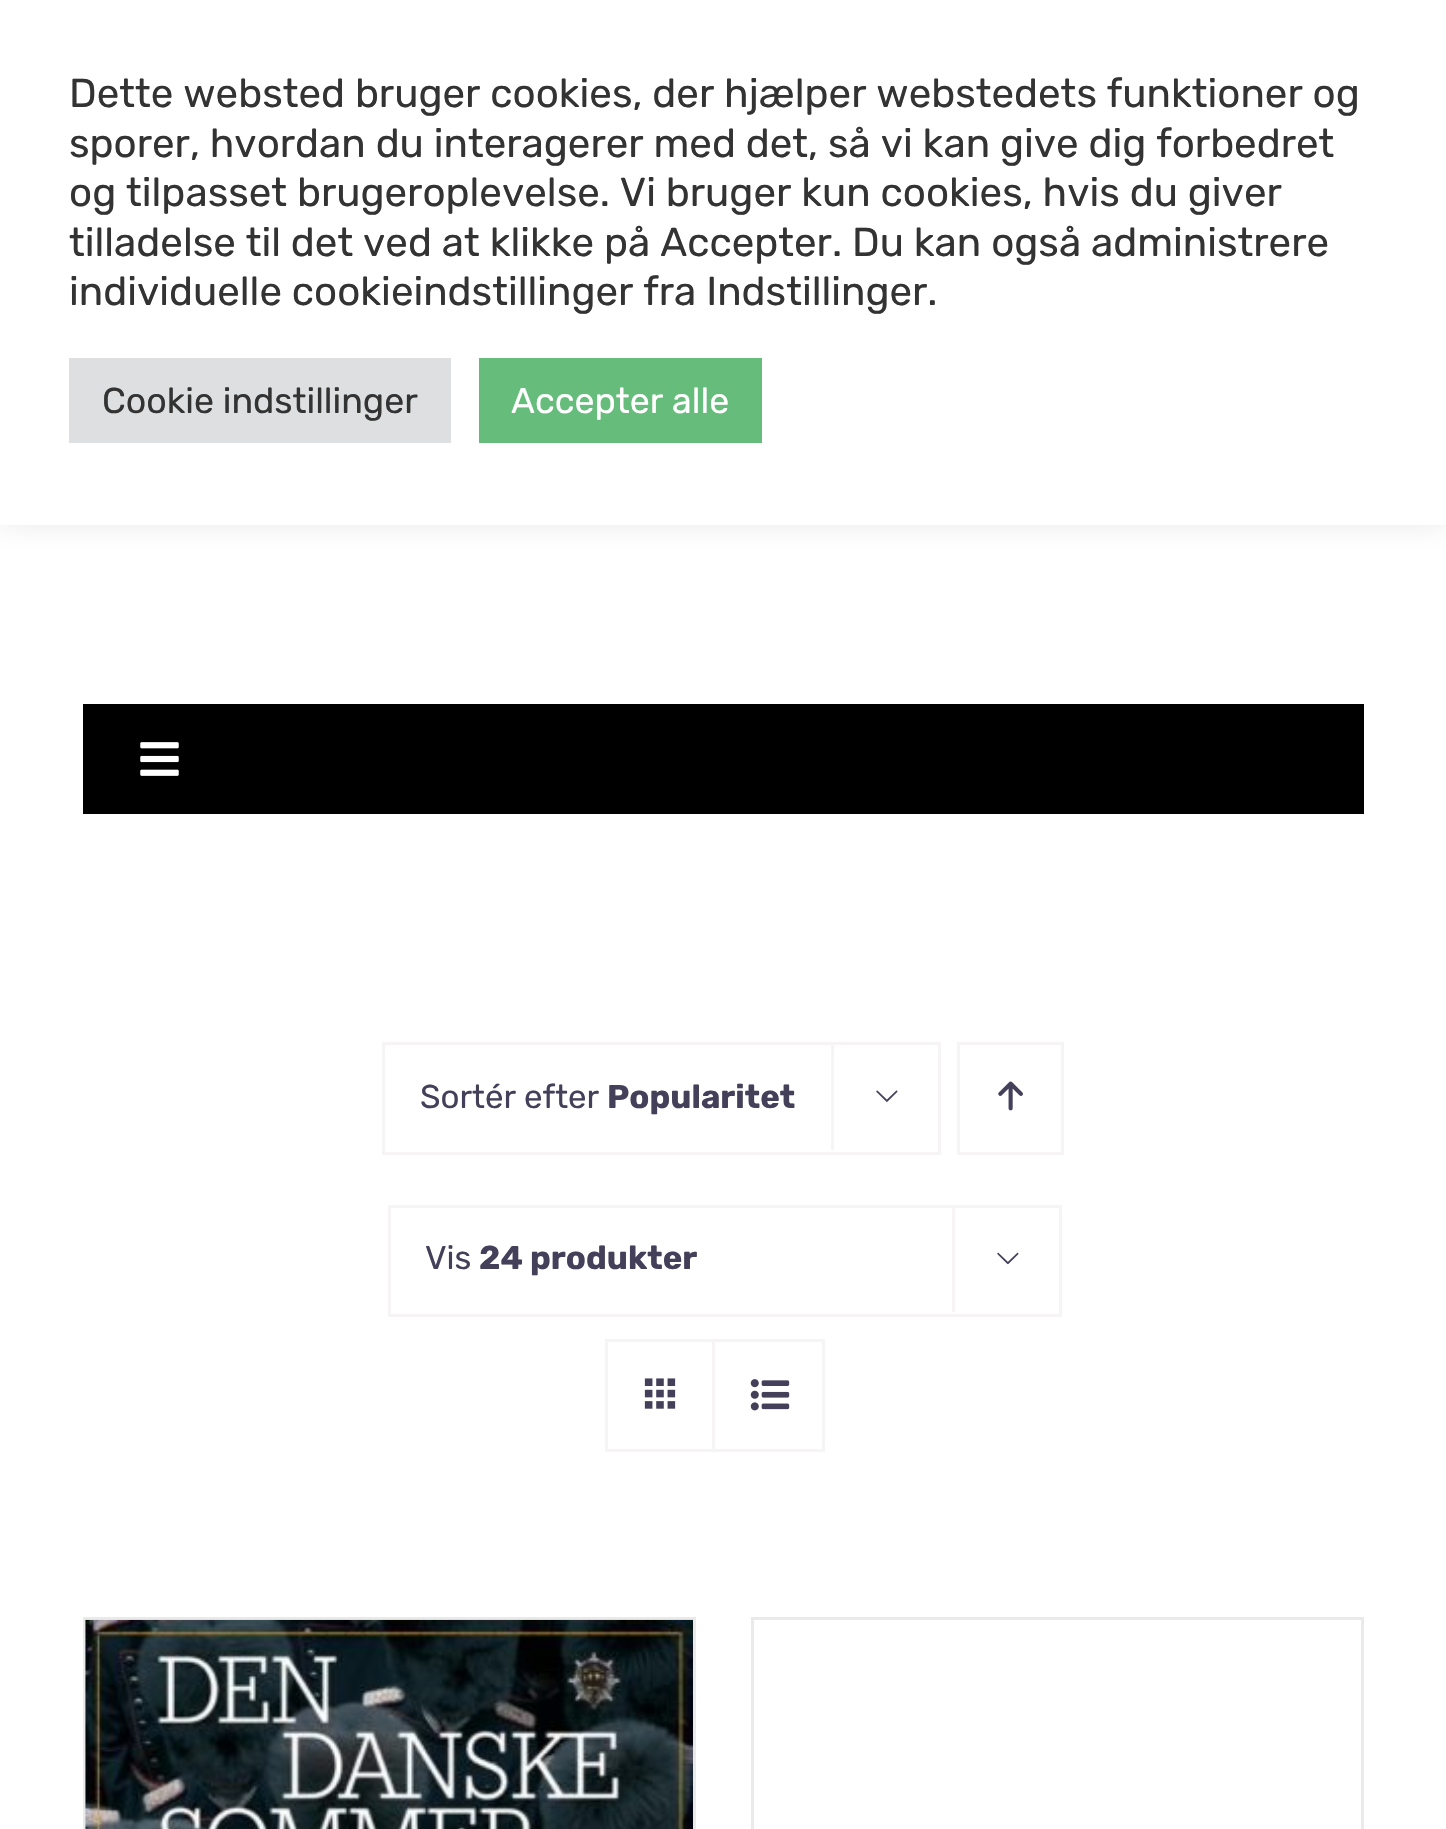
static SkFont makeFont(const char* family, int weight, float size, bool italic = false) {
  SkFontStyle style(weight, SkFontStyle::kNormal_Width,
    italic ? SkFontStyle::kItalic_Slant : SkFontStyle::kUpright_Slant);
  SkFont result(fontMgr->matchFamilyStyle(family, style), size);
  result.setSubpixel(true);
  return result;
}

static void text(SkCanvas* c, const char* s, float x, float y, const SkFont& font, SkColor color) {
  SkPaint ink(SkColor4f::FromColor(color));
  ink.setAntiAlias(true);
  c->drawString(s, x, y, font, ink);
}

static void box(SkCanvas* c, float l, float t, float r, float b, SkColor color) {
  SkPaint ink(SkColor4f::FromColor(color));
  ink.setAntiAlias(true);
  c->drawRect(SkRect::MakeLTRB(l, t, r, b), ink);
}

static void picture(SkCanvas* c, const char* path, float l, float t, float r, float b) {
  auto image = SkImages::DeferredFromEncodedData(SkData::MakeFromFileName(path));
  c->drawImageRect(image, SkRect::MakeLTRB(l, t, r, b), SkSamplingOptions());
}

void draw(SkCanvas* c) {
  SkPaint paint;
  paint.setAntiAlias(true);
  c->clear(0xffffffff);
  paint.setColor(0x4dacabab);
  paint.setMaskFilter(SkMaskFilter::MakeBlur(kNormal_SkBlurStyle, 14));
  c->drawRect(SkRect::MakeLTRB(0, -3, 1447, 523), paint);
  paint.setMaskFilter(nullptr);
  box(c, 0, 0, 1446, 525, 0xffffffff);
  SkFont face1 = makeFont("Rubik", 400, 40.3f);
  text(c, "Dette websted bruger cookies, der hjælper webstedets funktioner og", 69, 107, face1, 0xff333333);
  text(c, "sporer, hvordan du interagerer med det, så vi kan give dig forbedret", 69, 157, face1, 0xff333333);
  text(c, "og tilpasset brugeroplevelse. Vi bruger kun cookies, hvis du giver", 69, 206, face1, 0xff333333);
  text(c, "tilladelse til det ved at klikke på Accepter. Du kan også administrere", 69, 256, face1, 0xff333333);
  text(c, "individuelle cookieindstillinger fra Indstillinger.", 69, 305, face1, 0xff333333);
  box(c, 69, 358, 451, 443, 0xffdedfe0);
  SkFont face2 = makeFont("Rubik", 400, 35.75f);
  text(c, "Cookie indstillinger", 102, 413, face2, 0xff333333);
  box(c, 479, 358, 762, 443, 0xff65bc7b);
  text(c, "Accepter alle", 511, 413, face2, 0xffffffff);
  box(c, 83, 704, 1364, 814, 0xff000000);
  picture(c, "img_01.png", 140, 742, 179, 776);
  paint.setStyle(SkPaint::kStroke_Style);
  paint.setStrokeWidth(3);
  paint.setColor(0xfff6f4f5);
  c->drawRect(SkRect::MakeLTRB(383.5f, 1043.5f, 939.5f, 1153.5f), paint);
  SkFont face3 = makeFont("Rubik", 400, 33);
  text(c, "Sortér efter", 420, 1108, face3, 0xff44405a);
  SkFont face4 = makeFont("Rubik", 700, 33);
  text(c, "Popularitet", 607, 1108, face4, 0xff44405a);
  box(c, 831, 1042, 834, 1150, 0xfff6f4f5);
  picture(c, "img_02.png", 876, 1090, 898, 1102);
  c->drawRect(SkRect::MakeLTRB(958.5f, 1043.5f, 1062.5f, 1153.5f), paint);
  picture(c, "img_03.png", 998, 1081, 1023, 1111);
  c->drawRect(SkRect::MakeLTRB(389.5f, 1206.5f, 1060.5f, 1315.5f), paint);
  text(c, "Vis", 425, 1269, face3, 0xff44405a);
  text(c, "24 produkter", 479, 1269, face4, 0xff44405a);
  box(c, 952, 1205, 955, 1312, 0xfff6f4f5);
  picture(c, "img_04.png", 997, 1252, 1019, 1265);
  c->drawRect(SkRect::MakeLTRB(606.5f, 1340.5f, 823.5f, 1450.5f), paint);
  box(c, 712, 1342, 715, 1449, 0xfff6f4f5);
  picture(c, "img_05.png", 644, 1378, 676, 1409);
  picture(c, "img_06.png", 750, 1379, 790, 1411);
  box(c, 83, 1617, 696, 1620, 0xffebeaea);
  box(c, 693, 1617, 696, 1829, 0xffebeaea);
  box(c, 83, 1617, 86, 1829, 0xffebeaea);
  picture(c, "img_07.png", 85, 1619, 693, 1829);
  box(c, 751, 1617, 1364, 1620, 0xffebeaea);
  box(c, 1361, 1617, 1364, 1829, 0xffebeaea);
  box(c, 751, 1617, 754, 1829, 0xffebeaea);
}
